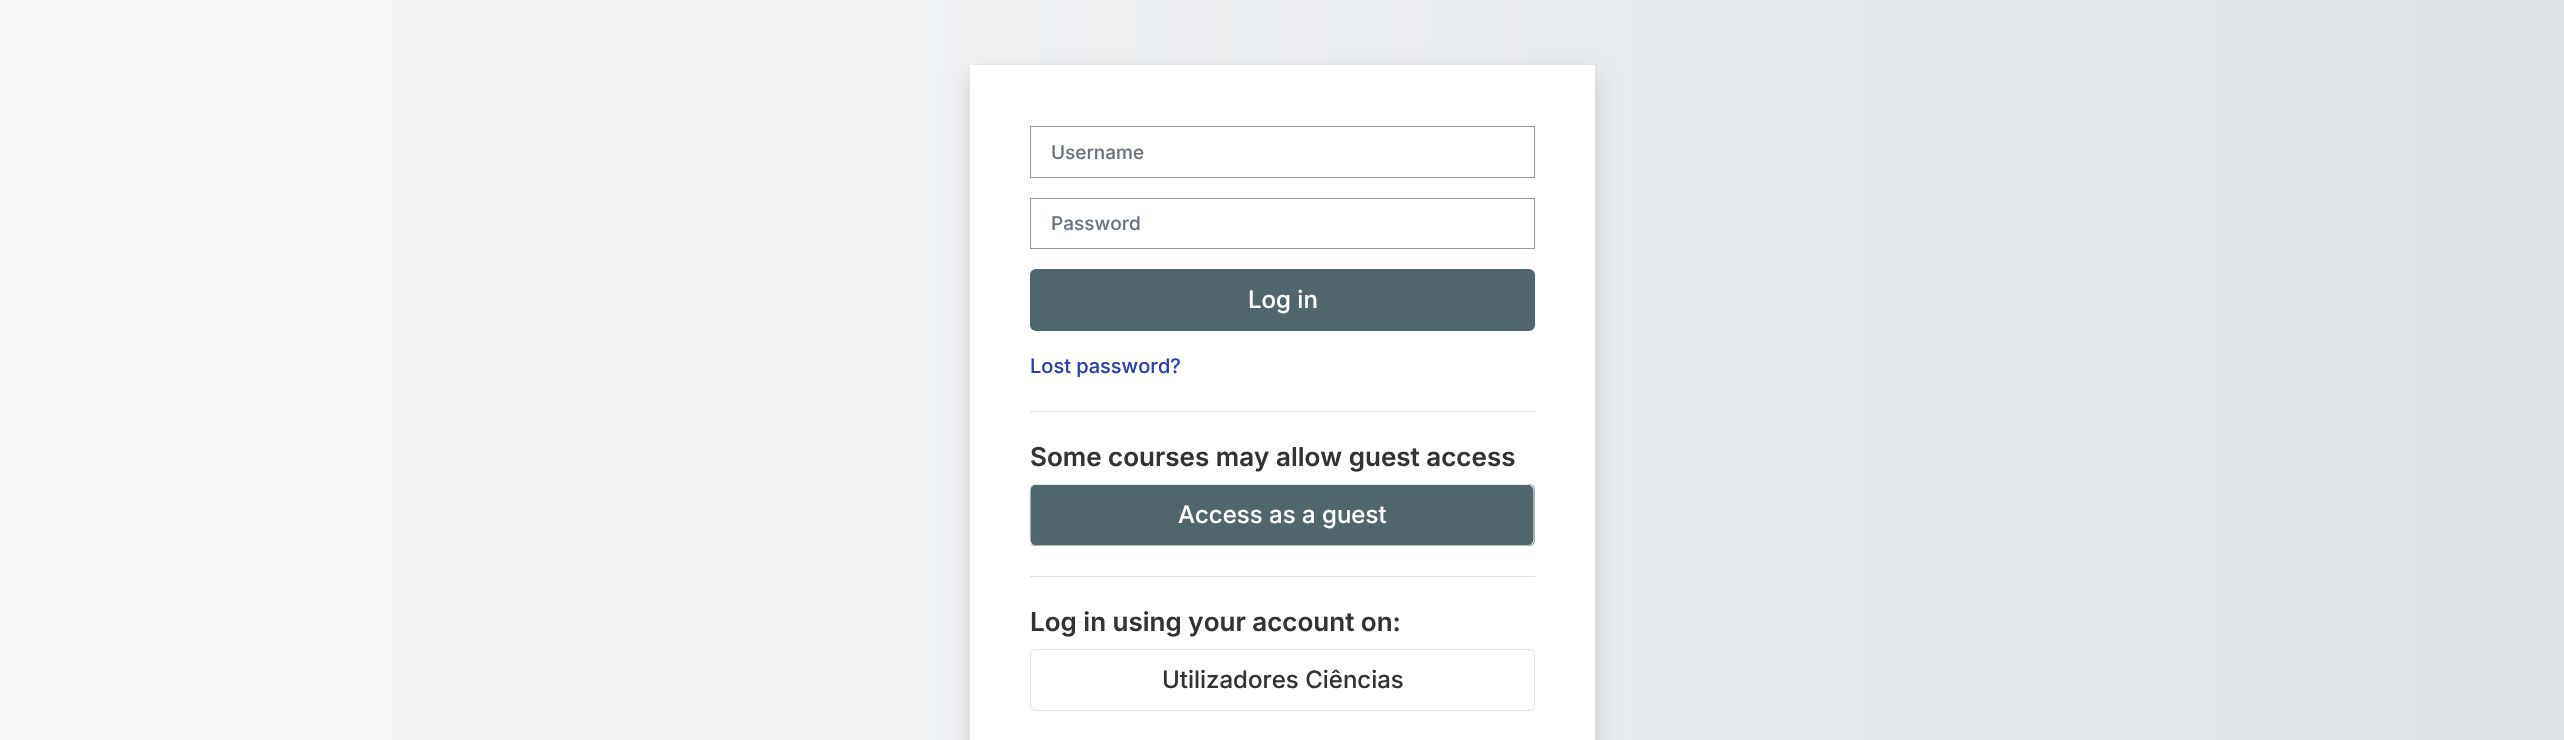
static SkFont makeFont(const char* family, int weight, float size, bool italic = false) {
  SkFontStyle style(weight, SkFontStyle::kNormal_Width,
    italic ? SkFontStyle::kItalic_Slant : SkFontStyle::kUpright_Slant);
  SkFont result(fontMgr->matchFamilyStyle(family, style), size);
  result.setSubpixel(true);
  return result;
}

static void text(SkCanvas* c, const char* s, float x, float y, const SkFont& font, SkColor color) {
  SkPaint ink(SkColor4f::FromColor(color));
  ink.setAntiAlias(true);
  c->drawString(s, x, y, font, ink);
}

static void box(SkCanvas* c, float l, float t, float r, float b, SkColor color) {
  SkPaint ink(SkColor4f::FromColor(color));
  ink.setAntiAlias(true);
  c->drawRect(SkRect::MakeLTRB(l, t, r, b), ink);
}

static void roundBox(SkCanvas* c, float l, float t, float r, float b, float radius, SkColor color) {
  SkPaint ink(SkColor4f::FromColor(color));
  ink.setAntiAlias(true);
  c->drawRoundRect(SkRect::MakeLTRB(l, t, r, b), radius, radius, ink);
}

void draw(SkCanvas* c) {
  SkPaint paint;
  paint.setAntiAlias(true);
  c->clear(0xffffffff);
  {
    const SkColor colors[] = {0xfff8f9fa, 0xffdee2e6};
    const float stops[] = {0, 1};
    const SkPoint ends[] = {{0, 479}, {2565, 479}};
    paint.setShader(SkGradientShader::MakeLinear(ends, colors, stops, 2, SkTileMode::kClamp));
    paint.setAlpha(255);
  }
  c->drawRect(SkRect::MakeLTRB(0, 0, 2564, 740), paint);
  paint.setShader(nullptr);
  paint.setColor(0x26000000);
  paint.setMaskFilter(SkMaskFilter::MakeBlur(kNormal_SkBlurStyle, 10));
  c->drawRect(SkRect::MakeLTRB(970, 75, 1595, 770), paint);
  paint.setMaskFilter(nullptr);
  box(c, 970, 65, 1595, 740, 0xffffffff);
  paint.setStyle(SkPaint::kStroke_Style);
  paint.setStrokeWidth(1);
  paint.setColor(0xff8f959e);
  c->drawRect(SkRect::MakeLTRB(1030.5f, 126.5f, 1534.5f, 177.5f), paint);
  SkFont face1 = makeFont("Inter", 500, 19);
  text(c, "Username", 1051, 159, face1, 0xff6a737b);
  c->drawRect(SkRect::MakeLTRB(1030.5f, 198.5f, 1534.5f, 248.5f), paint);
  text(c, "Password", 1051, 230, face1, 0xff6a737b);
  roundBox(c, 1030, 269, 1535, 331, 6, 0xff51666c);
  SkFont face2 = makeFont("Inter", 500, 24);
  text(c, "Log in", 1248, 308, face2, 0xffffffff);
  SkFont face3 = makeFont("Inter", 500, 20);
  text(c, "Lost password?", 1030, 373, face3, 0xff2c3fb1);
  box(c, 1030, 411, 1535, 412, 0xffdee2e6);
  SkFont face4 = makeFont("Inter", 600, 26);
  text(c, "Some courses may allow guest access", 1030, 466, face4, 0xff333333);
  roundBox(c, 1030, 484, 1535, 546, 6, 0xff51666c);
  paint.setStrokeWidth(1.2f);
  paint.setColor(0xffb3b3b3);
  c->drawPath(SkPathBuilder().moveTo(1532, 544).cubicTo(1531, 545, 1529.5f, 545.5f, 1528, 545.5f).lineTo(1035.5f, 545.5f).cubicTo(1034, 545.5f, 1032.5f, 545, 1031.5f, 544).detach(), paint);
  paint.setColor(0xffe6e6e6);
  c->drawPath(SkPathBuilder().moveTo(1031.5f, 544).cubicTo(1030.5f, 543, 1030, 541.5f, 1030, 540).lineTo(1030, 490).cubicTo(1030, 488.5f, 1030.5f, 487, 1031.5f, 486).cubicTo(1032.5f, 485, 1034, 484.5f, 1035.5f, 484.5f).lineTo(1528, 484.5f).cubicTo(1529.5f, 484.5f, 1531, 485, 1532, 486).cubicTo(1533, 487, 1534, 488.5f, 1534, 490).lineTo(1534, 540).cubicTo(1534, 541.5f, 1533, 543, 1532, 544).detach(), paint);
  text(c, "Access as a guest", 1178, 523, face2, 0xffffffff);
  box(c, 1030, 576, 1535, 577, 0xffdee2e6);
  text(c, "Log in using your account on:", 1030, 631, face4, 0xff333333);
  paint.setStrokeWidth(1);
  paint.setColor(0xffdee2e6);
  c->drawRoundRect(SkRect::MakeLTRB(1030.5f, 649.5f, 1534.5f, 710.5f), 5.5f, 5.5f, paint);
  text(c, "Utilizadores Ciências", 1162, 688, face2, 0xff333333);
}
